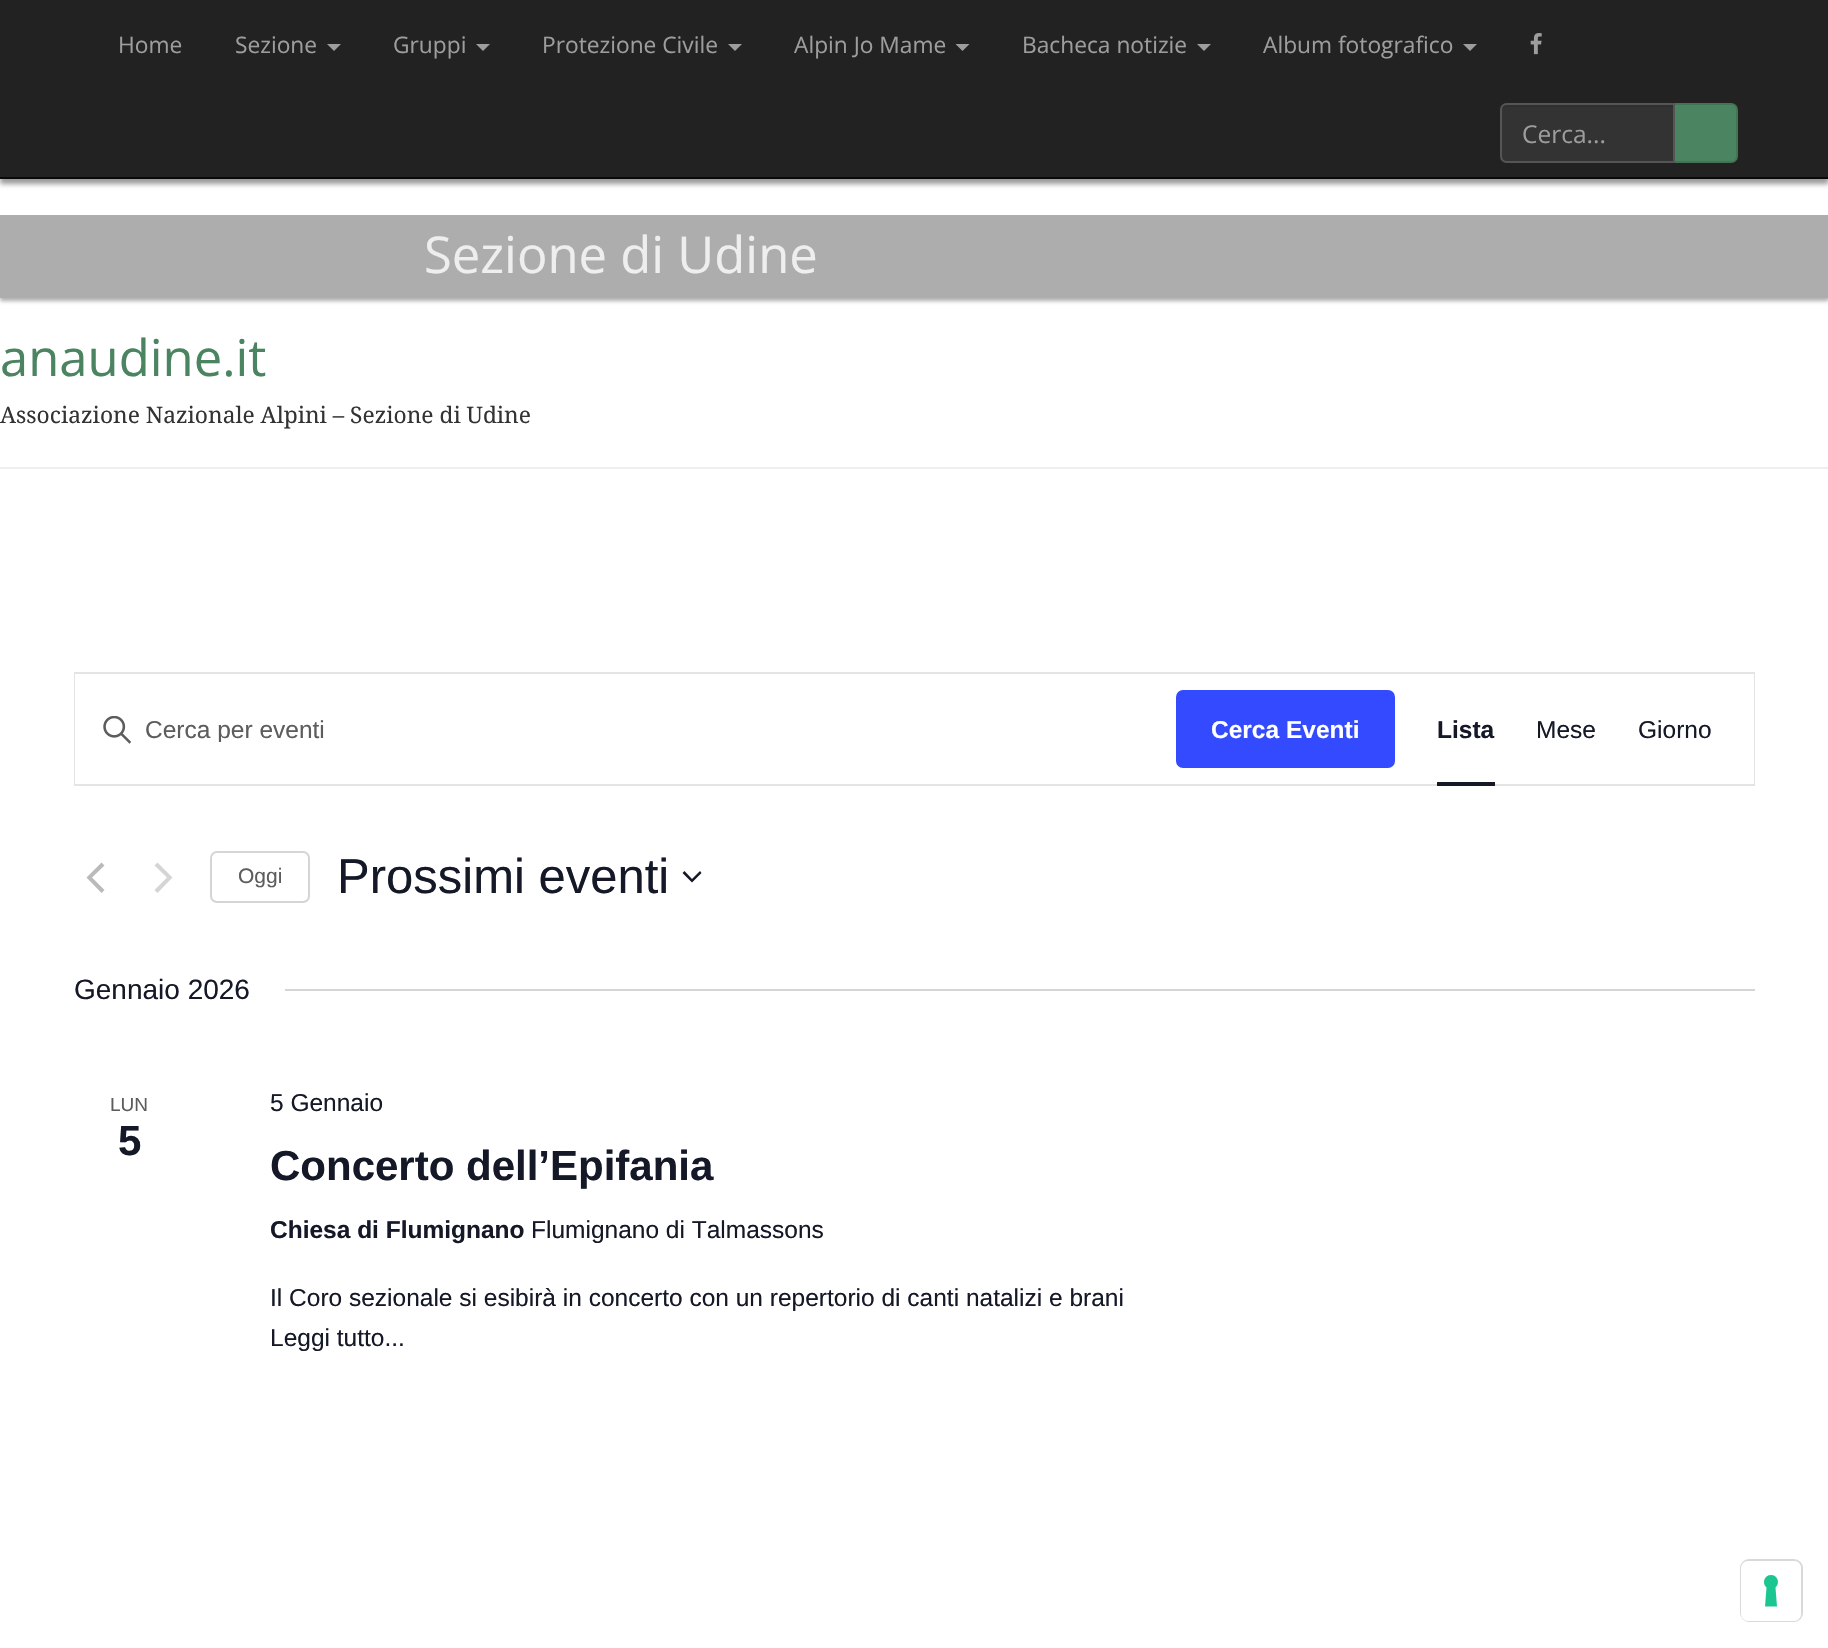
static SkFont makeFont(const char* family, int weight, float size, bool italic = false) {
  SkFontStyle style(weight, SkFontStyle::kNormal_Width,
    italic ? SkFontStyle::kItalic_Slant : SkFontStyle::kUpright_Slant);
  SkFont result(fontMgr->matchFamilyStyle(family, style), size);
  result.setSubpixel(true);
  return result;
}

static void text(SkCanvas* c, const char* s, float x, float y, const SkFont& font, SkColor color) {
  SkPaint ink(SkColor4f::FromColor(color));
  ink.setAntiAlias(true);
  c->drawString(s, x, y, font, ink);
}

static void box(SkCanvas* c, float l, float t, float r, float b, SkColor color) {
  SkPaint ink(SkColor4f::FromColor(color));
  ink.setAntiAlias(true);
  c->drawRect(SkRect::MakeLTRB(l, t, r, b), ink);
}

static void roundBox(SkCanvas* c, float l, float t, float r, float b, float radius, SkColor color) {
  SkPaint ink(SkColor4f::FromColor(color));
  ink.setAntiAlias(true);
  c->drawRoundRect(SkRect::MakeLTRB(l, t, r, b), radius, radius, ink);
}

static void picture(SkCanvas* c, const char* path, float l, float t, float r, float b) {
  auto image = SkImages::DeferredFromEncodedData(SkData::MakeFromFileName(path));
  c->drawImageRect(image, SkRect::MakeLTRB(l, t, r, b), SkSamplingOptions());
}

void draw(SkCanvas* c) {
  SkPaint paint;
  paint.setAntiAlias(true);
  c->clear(0xffffffff);
  paint.setColor(0x80333333);
  paint.setMaskFilter(SkMaskFilter::MakeBlur(kNormal_SkBlurStyle, 2.5f));
  c->drawRect(SkRect::MakeLTRB(0, 5, 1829, 184), paint);
  paint.setMaskFilter(nullptr);
  c->save();
  c->clipPath(SkPathBuilder(SkPathFillType::kEvenOdd).moveTo(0, 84).lineTo(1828, 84).lineTo(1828, 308).lineTo(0, 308).close().moveTo(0, 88).lineTo(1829, 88).lineTo(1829, 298).lineTo(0, 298).close().detach(), true);
  paint.setColor(0x66333333);
  paint.setMaskFilter(SkMaskFilter::MakeBlur(kNormal_SkBlurStyle, 2));
  c->drawRect(SkRect::MakeLTRB(0, 91, 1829, 301), paint);
  paint.setMaskFilter(nullptr);
  c->restore();
  box(c, 0, 0, 1828, 177, 0xff222222);
  box(c, 0, 177, 1828, 179, 0xff090909);
  SkFont face1 = makeFont("Open Sans", 400, 22.75f);
  text(c, "Home", 118, 53, face1, 0xff9d9d9d);
  text(c, "Sezione", 235, 53, face1, 0xff9d9d9d);
  paint.setColor(0xff9d9d9d);
  c->drawPath(SkPathBuilder().moveTo(327, 44).lineTo(341, 44).lineTo(334, 51).close().detach(), paint);
  text(c, "Gruppi", 393, 53, face1, 0xff9d9d9d);
  c->drawPath(SkPathBuilder().moveTo(476, 44).lineTo(490, 44).lineTo(483, 51).close().detach(), paint);
  text(c, "Protezione Civile", 542, 53, face1, 0xff9d9d9d);
  c->drawPath(SkPathBuilder().moveTo(728, 44).lineTo(742, 44).lineTo(735, 51).close().detach(), paint);
  text(c, "Alpin Jo Mame", 794, 53, face1, 0xff9d9d9d);
  c->drawPath(SkPathBuilder().moveTo(955.5f, 44).lineTo(969.5f, 44).lineTo(962.5f, 51).close().detach(), paint);
  text(c, "Bacheca notizie", 1022, 53, face1, 0xff9d9d9d);
  c->drawPath(SkPathBuilder().moveTo(1197, 44).lineTo(1211, 44).lineTo(1204, 51).close().detach(), paint);
  text(c, "Album fotografico", 1263, 53, face1, 0xff9d9d9d);
  c->drawPath(SkPathBuilder().moveTo(1463, 44).lineTo(1477, 44).lineTo(1470, 51).close().detach(), paint);
  picture(c, "img_01.png", 1530, 33, 1542, 55);
  paint.setColor(0xff4b8461);
  c->drawPath(SkPathBuilder().moveTo(1674, 104).lineTo(1731, 104).cubicTo(1734.5f, 104, 1737, 106.5f, 1737, 110).lineTo(1737, 156).cubicTo(1737, 159.5f, 1734.5f, 162, 1731, 162).lineTo(1674, 162).close().detach(), paint);
  paint.setStyle(SkPaint::kStroke_Style);
  paint.setStrokeWidth(2);
  paint.setColor(0xff427455);
  c->drawPath(SkPathBuilder().moveTo(1674, 104).lineTo(1731, 104).cubicTo(1734.5f, 104, 1737, 106.5f, 1737, 110).lineTo(1737, 156).cubicTo(1737, 159.5f, 1734.5f, 162, 1731, 162).lineTo(1674, 162).close().detach(), paint);
  paint.setStyle(SkPaint::kFill_Style);
  paint.setColor(0xff333333);
  c->drawPath(SkPathBuilder().moveTo(1507, 103).lineTo(1675, 103).lineTo(1675, 163).lineTo(1507, 163).cubicTo(1503, 163, 1500, 160, 1500, 156).lineTo(1500, 110).cubicTo(1500, 106, 1503, 103, 1507, 103).close().detach(), paint);
  paint.setColor(0xff2f2f2f);
  c->drawPath(SkPathBuilder().moveTo(1507, 107).lineTo(1673, 107).lineTo(1673, 105).lineTo(1507, 105).cubicTo(1504, 105, 1502, 107, 1502, 110).lineTo(1502, 112).cubicTo(1502, 109, 1504, 107, 1507, 107).close().detach(), paint);
  paint.setStyle(SkPaint::kStroke_Style);
  paint.setColor(0xff555555);
  c->drawPath(SkPathBuilder().moveTo(1507, 104).lineTo(1674, 104).lineTo(1674, 162).lineTo(1507, 162).cubicTo(1503.5f, 162, 1501, 159.5f, 1501, 156).lineTo(1501, 110).cubicTo(1501, 106.5f, 1503.5f, 104, 1507, 104).close().detach(), paint);
  SkFont face2 = makeFont("Open Sans", 400, 24.5f);
  text(c, "Cerca...", 1522, 143, face2, 0xff9d9d9d);
  box(c, 0, 215, 1828, 298, 0x66333333);
  SkFont face3 = makeFont("Open Sans", 400, 50.75f);
  text(c, "Sezione di Udine", 424, 273, face3, 0xffeeeeee);
  text(c, "anaudine.it", 0, 376, face3, 0xff4b8461);
  SkFont face4 = makeFont("Droid Serif", 400, 22.75f);
  text(c, "Associazione Nazionale Alpini – Sezione di Udine", 0, 423, face4, 0xff333333);
  box(c, 0, 467, 1828, 469, 0xffeeeeee);
  paint.setColor(0xffe4e4e4);
  c->drawRect(SkRect::MakeLTRB(75, 673, 1754, 785), paint);
  box(c, 75, 674, 76, 784, 0xffffffff);
  picture(c, "img_02.png", 103, 716, 131, 744);
  c->save();
  c->clipRect(SkRect::MakeLTRB(145, 714, 1141, 742));
  SkFont face5 = makeFont("Liberation Sans", 400, 24.5f);
  text(c, "Cerca per eventi", 145, 738, face5, 0xff5d5d5d);
  c->restore();
  roundBox(c, 1176, 690, 1395, 768, 7, 0xff334aff);
  SkFont face6 = makeFont("Liberation Sans", 700, 24.5f);
  text(c, "Cerca Eventi", 1211, 738, face6, 0xffffffff);
  box(c, 1753, 674, 1754, 784, 0xffffffff);
  text(c, "Lista", 1437, 738, face6, 0xff141827);
  box(c, 1437, 782, 1495, 786, 0xff141827);
  text(c, "Mese", 1536, 738, face5, 0xff141827);
  text(c, "Giorno", 1638, 738, face5, 0xff141827);
  paint.setStyle(SkPaint::kFill_Style);
  paint.setColor(0xffbababa);
  c->drawPath(SkPathBuilder().moveTo(104.5f, 890).lineTo(101.5f, 893).lineTo(86.5f, 877.5f).lineTo(101.5f, 862.5f).lineTo(104.5f, 865.5f).lineTo(92, 877.5f).close().detach(), paint);
  paint.setColor(0xffd5d5d5);
  c->drawPath(SkPathBuilder().moveTo(154.5f, 865.5f).lineTo(157.5f, 862.5f).lineTo(172.5f, 877.5f).lineTo(157.5f, 893).lineTo(154.5f, 890).lineTo(167, 877.5f).close().detach(), paint);
  paint.setStyle(SkPaint::kStroke_Style);
  c->drawRoundRect(SkRect::MakeLTRB(211, 852, 309, 902), 6, 6, paint);
  SkFont face7 = makeFont("Liberation Sans", 400, 21);
  text(c, "Oggi", 238, 883, face7, 0xff5d5d5d);
  SkFont face8 = makeFont("Liberation Sans", 400, 49);
  text(c, "Prossimi eventi", 337, 893, face8, 0xff141827);
  paint.setStyle(SkPaint::kFill_Style);
  paint.setColor(0xff141827);
  c->drawPath(SkPathBuilder(SkPathFillType::kEvenOdd).moveTo(684.5f, 871).lineTo(692, 879).lineTo(700, 871).lineTo(701.5f, 873).lineTo(692, 882.5f).lineTo(682.5f, 873).close().detach(), paint);
  SkFont face9 = makeFont("Liberation Sans", 400, 28);
  text(c, "Gennaio 2026", 74, 999, face9, 0xff141827);
  box(c, 285, 989, 1755, 991, 0xffd5d5d5);
  SkFont face10 = makeFont("Liberation Sans", 400, 19);
  text(c, "LUN", 110, 1111, face10, 0xff5d5d5d);
  SkFont face11 = makeFont("Liberation Sans", 700, 42);
  text(c, "5", 118, 1155, face11, 0xff141827);
  text(c, "5 Gennaio", 270, 1111, face5, 0xff141827);
  text(c, "Concerto dell’Epifania", 270, 1180, face11, 0xff141827);
  text(c, "Chiesa di Flumignano", 270, 1238, face6, 0xff141827);
  text(c, "Flumignano di Talmassons", 531, 1238, face5, 0xff141827);
  text(c, "Il Coro sezionale si esibirà in concerto con un repertorio di canti natalizi e brani", 270, 1306, face5, 0xff141827);
  text(c, "Leggi tutto...", 270, 1346, face5, 0xff141827);
  paint.setStyle(SkPaint::kStroke_Style);
  paint.setColor(0xffd9d9d9);
  c->drawRoundRect(SkRect::MakeLTRB(1741, 1560, 1802, 1621), 8, 8, paint);
  roundBox(c, 1741, 1561, 1801, 1621, 7, 0xffffffff);
  paint.setStyle(SkPaint::kFill_Style);
  paint.setColor(0xff1cc691);
  c->drawPath(SkPathBuilder(SkPathFillType::kEvenOdd).moveTo(1771, 1575).cubicTo(1777.5f, 1575, 1780.5f, 1583, 1775.5f, 1587.5f).lineTo(1777, 1606.5f).lineTo(1765, 1606.5f).lineTo(1766.5f, 1587.5f).cubicTo(1761.5f, 1583, 1764.5f, 1575, 1771, 1575).close().detach(), paint);
}
